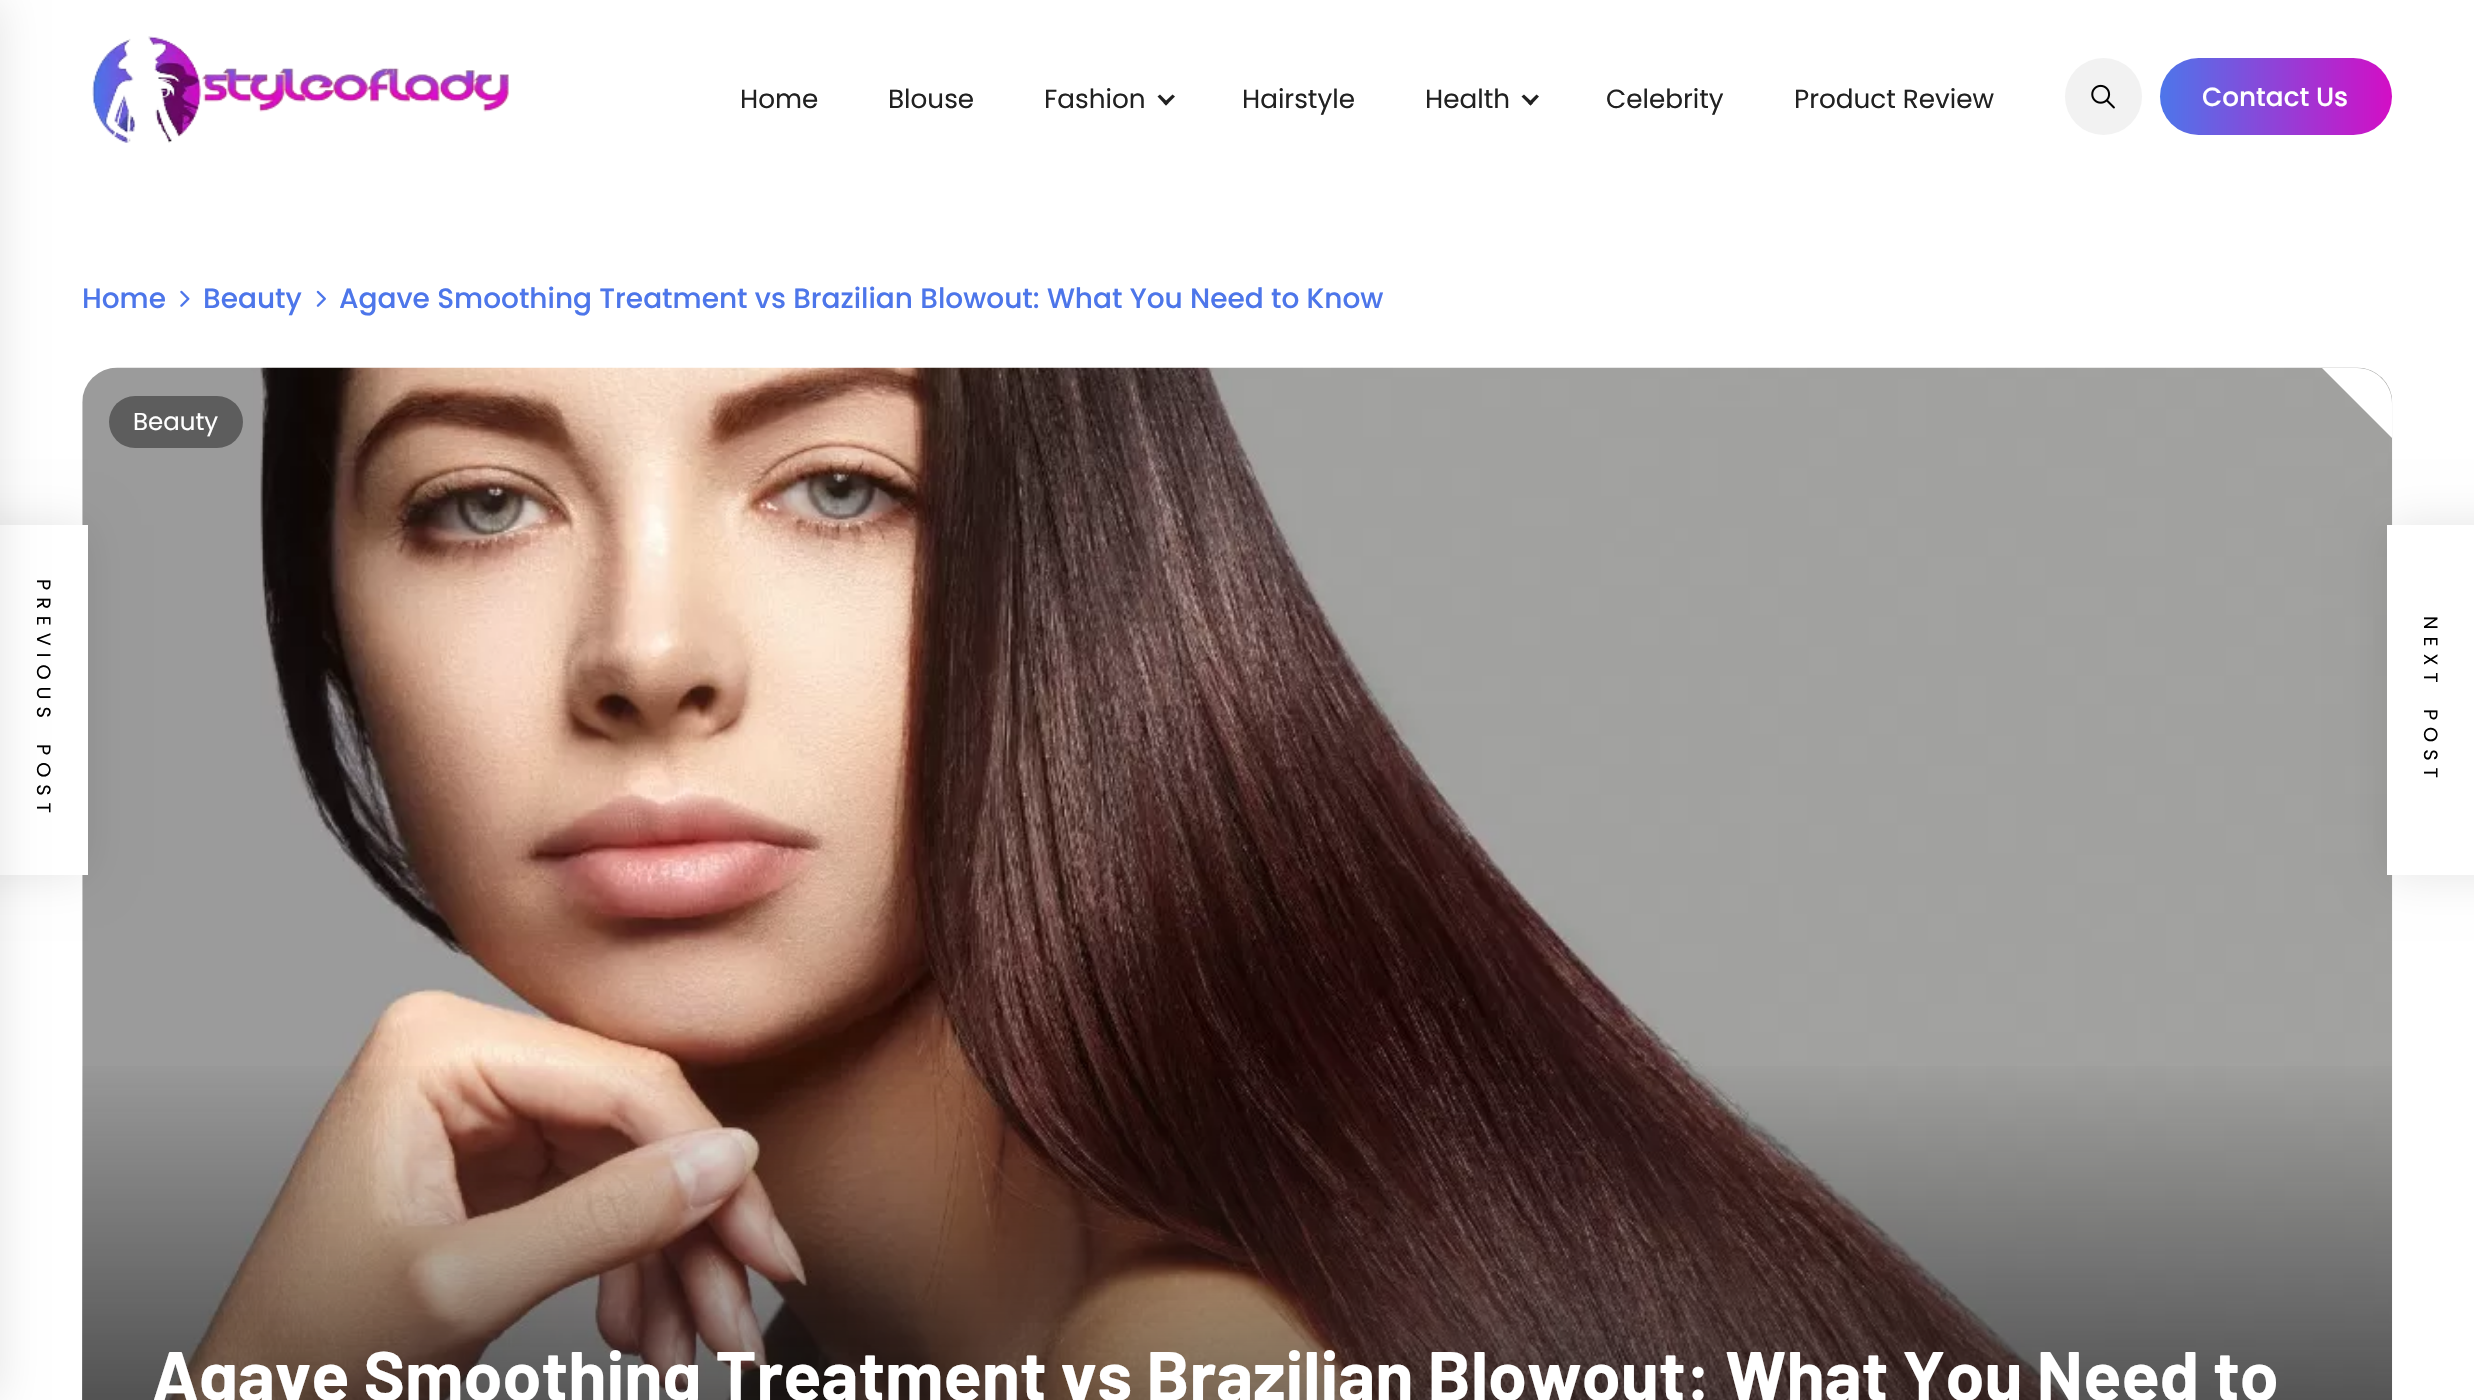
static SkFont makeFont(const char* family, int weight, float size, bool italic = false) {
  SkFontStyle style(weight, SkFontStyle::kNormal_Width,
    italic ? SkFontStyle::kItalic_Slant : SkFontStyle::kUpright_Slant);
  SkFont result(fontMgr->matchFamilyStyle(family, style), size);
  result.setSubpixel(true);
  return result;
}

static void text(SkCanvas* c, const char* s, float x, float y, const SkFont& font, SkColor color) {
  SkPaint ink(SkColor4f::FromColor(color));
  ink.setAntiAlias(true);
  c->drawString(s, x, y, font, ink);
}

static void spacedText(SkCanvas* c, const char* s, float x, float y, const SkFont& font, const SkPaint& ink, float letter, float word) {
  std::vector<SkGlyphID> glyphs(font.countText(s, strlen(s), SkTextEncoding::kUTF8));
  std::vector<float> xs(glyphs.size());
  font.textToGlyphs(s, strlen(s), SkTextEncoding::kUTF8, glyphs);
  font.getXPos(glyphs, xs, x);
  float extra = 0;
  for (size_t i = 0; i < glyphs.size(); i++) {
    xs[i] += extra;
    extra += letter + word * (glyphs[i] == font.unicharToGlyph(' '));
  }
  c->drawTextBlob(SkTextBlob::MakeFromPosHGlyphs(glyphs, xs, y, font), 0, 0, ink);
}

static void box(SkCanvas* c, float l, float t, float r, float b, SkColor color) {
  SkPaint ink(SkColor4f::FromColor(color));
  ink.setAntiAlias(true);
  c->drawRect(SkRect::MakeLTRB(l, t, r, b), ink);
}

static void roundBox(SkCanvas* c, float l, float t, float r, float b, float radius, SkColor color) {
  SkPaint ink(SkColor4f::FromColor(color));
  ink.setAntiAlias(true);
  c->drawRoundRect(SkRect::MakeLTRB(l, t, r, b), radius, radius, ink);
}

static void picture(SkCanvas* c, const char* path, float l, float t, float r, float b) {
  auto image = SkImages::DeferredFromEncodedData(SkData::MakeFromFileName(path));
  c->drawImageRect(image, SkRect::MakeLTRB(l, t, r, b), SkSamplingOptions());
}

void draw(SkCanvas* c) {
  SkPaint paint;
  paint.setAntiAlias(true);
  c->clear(0xffffffff);
  picture(c, "img_05.png", 82, 367, 2393, 1400);
  paint.setColor(0x1a000000);
  paint.setMaskFilter(SkMaskFilter::MakeBlur(kNormal_SkBlurStyle, 22));
  c->drawRect(SkRect::MakeLTRB(-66, 525, 88, 875), paint);
  paint.setMaskFilter(nullptr);
  box(c, 0, 525, 88, 875, 0xffffffff);
  paint.setMaskFilter(SkMaskFilter::MakeBlur(kNormal_SkBlurStyle, 22));
  c->drawRect(SkRect::MakeLTRB(-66, 0, 0, 1400), paint);
  paint.setMaskFilter(nullptr);
  picture(c, "img_01.png", 92, 36, 509, 143);
  SkFont face1 = makeFont("Poppins", 400, 26.25f);
  text(c, "Home", 740, 108, face1, 0xff212121);
  text(c, "Blouse", 888, 108, face1, 0xff212121);
  text(c, "Fashion", 1044, 108, face1, 0xff212121);
  paint.setColor(0xff212121);
  c->drawPath(SkPathBuilder().moveTo(1172.5f, 94.5f).lineTo(1175, 96.5f).lineTo(1166, 105.5f).lineTo(1163.5f, 103).close().detach(), paint);
  c->drawPath(SkPathBuilder().moveTo(1160, 94.5f).lineTo(1168.5f, 103).lineTo(1166, 105.5f).lineTo(1157.5f, 96.5f).close().detach(), paint);
  text(c, "Hairstyle", 1242, 108, face1, 0xff212121);
  text(c, "Health", 1425, 108, face1, 0xff212121);
  c->drawPath(SkPathBuilder().moveTo(1536.5f, 94.5f).lineTo(1539, 96.5f).lineTo(1530.5f, 105.5f).lineTo(1528, 103).close().detach(), paint);
  c->drawPath(SkPathBuilder().moveTo(1524, 94.5f).lineTo(1533, 103).lineTo(1530.5f, 105.5f).lineTo(1521.5f, 96.5f).close().detach(), paint);
  text(c, "Celebrity", 1606, 108, face1, 0xff212121);
  text(c, "Product Review", 1794, 108, face1, 0xff212121);
  paint.setColor(0xfff2f2f2);
  c->drawCircle(2103.5f, 96.5f, 38.5f, paint);
  picture(c, "img_02.png", 2091, 84, 2115, 109);
  {
    const SkColor colors[] = {0xff4d76ea, 0xffd30ec5};
    const float stops[] = {0, 1};
    const SkPoint ends[] = {{2160, 96}, {2392, 96}};
    paint.setShader(SkGradientShader::MakeLinear(ends, colors, stops, 2, SkTileMode::kClamp));
    paint.setAlpha(255);
  }
  c->drawRoundRect(SkRect::MakeLTRB(2160, 58, 2392, 135), 38.5f, 38.5f, paint);
  SkFont face2 = makeFont("Poppins", 500, 26.25f);
  text(c, "Contact Us", 2202, 106, face2, 0xffffffff);
  SkFont face3 = makeFont("Poppins", 500, 28);
  text(c, "Home", 82, 308, face3, 0xff4d76ea);
  picture(c, "img_03.png", 180, 290, 190, 307);
  text(c, "Beauty", 203, 308, face3, 0xff4d76ea);
  picture(c, "img_04.png", 316, 290, 326, 307);
  text(c, "Agave Smoothing Treatment vs Brazilian Blowout: What You Need to Know", 339, 308, face3, 0xff4d76ea);
  paint.setShader(nullptr);
  paint.setColor(0xffffffff);
  c->drawPath(SkPathBuilder().moveTo(2392, 438).lineTo(2392, 403).cubicTo(2392, 384, 2376, 368, 2357, 368).lineTo(2322, 368).close().detach(), paint);
  {
    const SkColor colors[] = {0x001a1a1a, 0xff1a1a1a};
    const float stops[] = {0, 1};
    const SkPoint ends[] = {{1237, 1053}, {1237, 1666}};
    paint.setShader(SkGradientShader::MakeLinear(ends, colors, stops, 2, SkTileMode::kClamp));
    paint.setAlpha(255);
  }
  c->drawRect(SkRect::MakeLTRB(82, 1066, 2392, 1400), paint);
  roundBox(c, 109, 396, 243, 448, 26, 0xff5d5d5d);
  SkFont face4 = makeFont("Poppins", 400, 24.5f);
  text(c, "Beauty", 133, 430, face4, 0xffffffff);
  SkFont face5 = makeFont("Barlow", 700, 70);
  text(c, "Agave Smoothing Treatment vs Brazilian Blowout: What You Need to", 152, 1401, face5, 0xffffffff);
  SkFont face6 = makeFont("Poppins", 400, 19.25f);
  paint.setShader(nullptr);
  paint.setColor(0xff000000);
  c->save();
  c->rotate(90, 37, 579);
  spacedText(c, "PREVIOUS POST", 37, 579, face6, paint, 7, 7);
  c->restore();
  paint.setColor(0x1a000000);
  paint.setMaskFilter(SkMaskFilter::MakeBlur(kNormal_SkBlurStyle, 22));
  c->drawRect(SkRect::MakeLTRB(2387, 525, 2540, 875), paint);
  paint.setMaskFilter(nullptr);
  box(c, 2387, 525, 2474, 875, 0xffffffff);
  paint.setColor(0xff000000);
  c->save();
  c->rotate(90, 2424, 616);
  spacedText(c, "NEXT POST", 2424, 616, face6, paint, 7, 7);
  c->restore();
}
